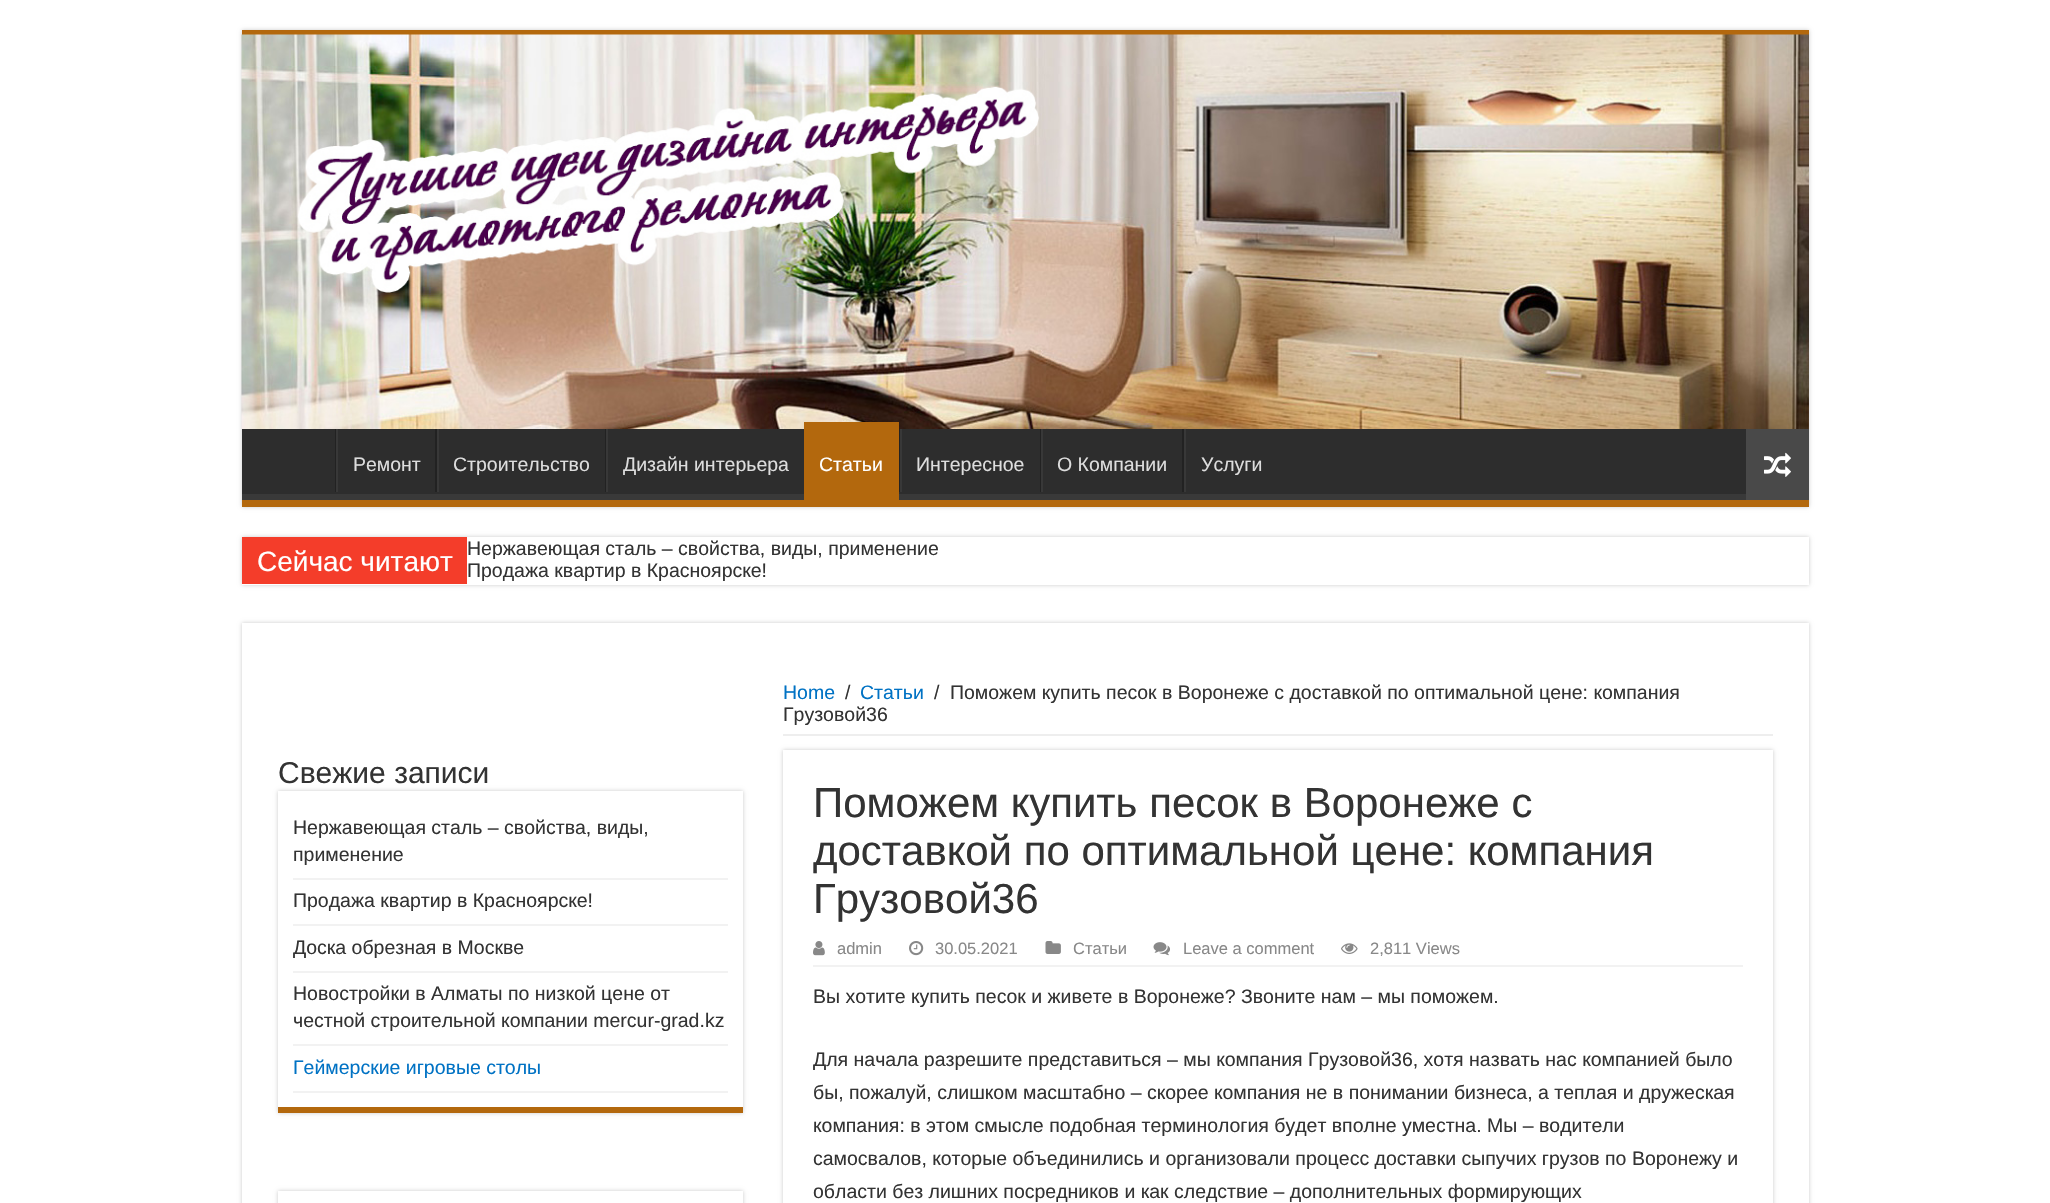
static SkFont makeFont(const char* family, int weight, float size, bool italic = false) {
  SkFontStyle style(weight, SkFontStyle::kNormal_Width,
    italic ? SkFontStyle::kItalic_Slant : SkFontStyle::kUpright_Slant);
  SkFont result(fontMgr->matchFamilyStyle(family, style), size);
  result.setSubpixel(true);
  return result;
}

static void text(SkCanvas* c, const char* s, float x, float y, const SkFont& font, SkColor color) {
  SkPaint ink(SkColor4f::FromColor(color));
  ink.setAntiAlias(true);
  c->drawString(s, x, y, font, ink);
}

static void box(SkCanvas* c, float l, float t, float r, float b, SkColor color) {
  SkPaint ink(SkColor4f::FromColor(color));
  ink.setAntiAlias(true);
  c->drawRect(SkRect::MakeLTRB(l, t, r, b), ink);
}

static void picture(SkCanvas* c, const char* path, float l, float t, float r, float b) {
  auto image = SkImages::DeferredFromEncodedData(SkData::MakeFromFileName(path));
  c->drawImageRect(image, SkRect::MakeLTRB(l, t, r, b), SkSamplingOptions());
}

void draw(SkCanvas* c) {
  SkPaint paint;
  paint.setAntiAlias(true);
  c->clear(0xffffffff);
  paint.setColor(0xffcacaca);
  paint.setMaskFilter(SkMaskFilter::MakeBlur(kNormal_SkBlurStyle, 2));
  c->drawRect(SkRect::MakeLTRB(242, 30, 1809, 507), paint);
  paint.setMaskFilter(nullptr);
  box(c, 242, 30, 1809, 35, 0xffb3680d);
  picture(c, "img_01.png", 241, 34, 1809, 429);
  box(c, 242, 429, 1746, 494, 0xff2d2d2d);
  c->save();
  c->clipRect(SkRect::MakeLTRB(242, 429, 1809, 500));
  paint.setColor(0xff393939);
  c->drawPath(SkPathBuilder(SkPathFillType::kEvenOdd).moveTo(93, 280).lineTo(1958, 280).lineTo(1958, 648).lineTo(93, 648).close().moveTo(240, 420).lineTo(1808, 420).cubicTo(1808, 420, 1809, 421, 1809, 422).lineTo(1809, 492).cubicTo(1809, 493, 1808, 494, 1808, 494).lineTo(240, 494).cubicTo(239, 494, 238, 493, 238, 492).lineTo(238, 422).cubicTo(238, 421, 239, 420, 240, 420).close().detach(), paint);
  c->restore();
  box(c, 242, 500, 1809, 507, 0xffb3680d);
  box(c, 335, 429, 336, 492, 0xff222222);
  box(c, 336, 429, 338, 492, 0xff383838);
  SkFont face1 = makeFont("Liberation Sans", 400, 19.5f);
  text(c, "Ремонт", 353, 471, face1, 0xffdddddd);
  box(c, 435, 429, 437, 492, 0xff222222);
  box(c, 437, 429, 439, 492, 0xff383838);
  text(c, "Строительство", 453, 471, face1, 0xffdddddd);
  box(c, 605, 429, 606, 492, 0xff222222);
  box(c, 606, 429, 608, 492, 0xff383838);
  text(c, "Дизайн интерьера", 623, 471, face1, 0xffdddddd);
  box(c, 804, 422, 899, 500, 0xffb3680d);
  text(c, "Статьи", 819, 471, face1, 0xffffffff);
  box(c, 899, 429, 900, 492, 0xff222222);
  box(c, 900, 429, 902, 492, 0xff383838);
  text(c, "Интересное", 916, 471, face1, 0xffdddddd);
  box(c, 1040, 429, 1041, 492, 0xff222222);
  box(c, 1041, 429, 1043, 492, 0xff383838);
  text(c, "О Компании", 1057, 471, face1, 0xffdddddd);
  box(c, 1182, 429, 1184, 492, 0xff222222);
  box(c, 1184, 429, 1186, 492, 0xff383838);
  text(c, "Услуги", 1201, 471, face1, 0xffdddddd);
  box(c, 1746, 429, 1809, 500, 0xff494949);
  picture(c, "img_02.png", 1764, 452, 1791, 477);
  c->save();
  c->clipPath(SkPathBuilder(SkPathFillType::kEvenOdd).moveTo(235, 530).lineTo(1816, 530).lineTo(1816, 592).lineTo(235, 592).close().moveTo(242, 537).lineTo(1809, 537).lineTo(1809, 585).lineTo(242, 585).close().detach(), true);
  paint.setColor(0xffcacaca);
  paint.setMaskFilter(SkMaskFilter::MakeBlur(kNormal_SkBlurStyle, 2));
  c->drawRect(SkRect::MakeLTRB(242, 537, 1809, 585), paint);
  paint.setMaskFilter(nullptr);
  c->restore();
  box(c, 242, 537, 467, 584, 0xfff43d2a);
  SkFont face2 = makeFont("Liberation Sans", 400, 28);
  text(c, "Сейчас читают", 257, 571, face2, 0xffffffff);
  text(c, "Нержавеющая сталь – свойства, виды, применение", 467, 555, face1, 0xff333333);
  text(c, "Продажа квартир в Красноярске!", 467, 577, face1, 0xff333333);
  c->save();
  c->clipPath(SkPathBuilder(SkPathFillType::kEvenOdd).moveTo(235, 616).lineTo(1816, 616).lineTo(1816, 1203).lineTo(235, 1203).close().moveTo(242, 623).lineTo(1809, 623).lineTo(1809, 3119).lineTo(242, 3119).close().detach(), true);
  paint.setMaskFilter(SkMaskFilter::MakeBlur(kNormal_SkBlurStyle, 2));
  c->drawRect(SkRect::MakeLTRB(242, 623, 1809, 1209), paint);
  paint.setMaskFilter(nullptr);
  c->restore();
  SkFont face3 = makeFont("Liberation Sans", 400, 30);
  text(c, "Свежие записи", 278, 783, face3, 0xff333333);
  paint.setMaskFilter(SkMaskFilter::MakeBlur(kNormal_SkBlurStyle, 2));
  c->drawRect(SkRect::MakeLTRB(278, 791, 743, 1113), paint);
  paint.setMaskFilter(nullptr);
  box(c, 278, 791, 743, 1107, 0xffffffff);
  box(c, 278, 1107, 743, 1113, 0xffb3680d);
  box(c, 293, 878, 728, 880, 0xfff2f2f2);
  text(c, "Нержавеющая сталь – свойства, виды,", 293, 834, face1, 0xff333333);
  text(c, "применение", 293, 861, face1, 0xff333333);
  box(c, 293, 924, 728, 926, 0xfff2f2f2);
  text(c, "Продажа квартир в Красноярске!", 293, 907, face1, 0xff333333);
  box(c, 293, 971, 728, 973, 0xfff2f2f2);
  c->save();
  c->clipRect(SkRect::MakeLTRB(293, 926, 728, 971));
  text(c, "Доска обрезная в Москве", 293, 954, face1, 0xff333333);
  c->restore();
  box(c, 293, 1044, 728, 1046, 0xfff2f2f2);
  text(c, "Новостройки в Алматы по низкой цене от", 293, 1000, face1, 0xff333333);
  text(c, "честной строительной компании mercur-grad.kz", 293, 1027, face1, 0xff333333);
  box(c, 293, 1091, 728, 1093, 0xfff2f2f2);
  text(c, "Геймерские игровые столы", 293, 1074, face1, 0xff0072c4);
  paint.setMaskFilter(SkMaskFilter::MakeBlur(kNormal_SkBlurStyle, 2));
  c->drawRect(SkRect::MakeLTRB(278, 1191, 743, 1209), paint);
  paint.setMaskFilter(nullptr);
  box(c, 278, 1191, 743, 1203, 0xffffffff);
  box(c, 783, 734, 1773, 736, 0xffeeeeee);
  text(c, "Home", 783, 699, face1, 0xff0072c4);
  text(c, "/", 845, 699, face1, 0xff333333);
  text(c, "Статьи", 860, 699, face1, 0xff0072c4);
  text(c, "/", 934, 699, face1, 0xff333333);
  text(c, "Поможем купить песок в Воронеже с доставкой по оптимальной цене: компания", 950, 699, face1, 0xff333333);
  text(c, "Грузовой36", 783, 721, face1, 0xff333333);
  c->save();
  c->clipPath(SkPathBuilder(SkPathFillType::kEvenOdd).moveTo(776, 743).lineTo(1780, 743).lineTo(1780, 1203).lineTo(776, 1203).close().moveTo(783, 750).lineTo(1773, 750).lineTo(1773, 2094).lineTo(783, 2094).close().detach(), true);
  paint.setMaskFilter(SkMaskFilter::MakeBlur(kNormal_SkBlurStyle, 2));
  c->drawRect(SkRect::MakeLTRB(783, 750, 1773, 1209), paint);
  paint.setMaskFilter(nullptr);
  c->restore();
  SkFont face4 = makeFont("Liberation Sans", 400, 42);
  text(c, "Поможем купить песок в Воронеже с", 813, 817, face4, 0xff333333);
  text(c, "доставкой по оптимальной цене: компания", 813, 865, face4, 0xff333333);
  text(c, "Грузовой36", 813, 913, face4, 0xff333333);
  box(c, 813, 965, 1743, 967, 0xfff2f2f2);
  picture(c, "img_03.png", 813, 941, 825, 956);
  SkFont face5 = makeFont("Liberation Sans", 400, 16.5f);
  text(c, "admin", 837, 954, face5, 0xff888888);
  picture(c, "img_04.png", 909, 941, 924, 956);
  text(c, "30.05.2021", 935, 954, face5, 0xff888888);
  picture(c, "img_05.png", 1045, 941, 1061, 954);
  text(c, "Статьи", 1073, 954, face5, 0xff888888);
  picture(c, "img_06.png", 1153, 942, 1170, 956);
  text(c, "Leave a comment", 1183, 954, face5, 0xff888888);
  picture(c, "img_07.png", 1341, 943, 1358, 954);
  text(c, "2,811 Views", 1370, 954, face5, 0xff888888);
  text(c, "Вы хотите купить песок и живете в Воронеже? Звоните нам – мы поможем.", 813, 1003, face1, 0xff333333);
  text(c, "Для начала разрешите представиться – мы компания Грузовой36, хотя назвать нас компанией было", 813, 1066, face1, 0xff333333);
  text(c, "бы, пожалуй, слишком масштабно – скорее компания не в понимании бизнеса, а теплая и дружеская", 813, 1099, face1, 0xff333333);
  text(c, "компания: в этом смысле подобная терминология будет вполне уместна. Мы – водители", 813, 1132, face1, 0xff333333);
  text(c, "самосвалов, которые объединились и организовали процесс доставки сыпучих грузов по Воронежу и", 813, 1165, face1, 0xff333333);
  text(c, "области без лишних посредников и как следствие – дополнительных формирующих", 813, 1198, face1, 0xff333333);
}
